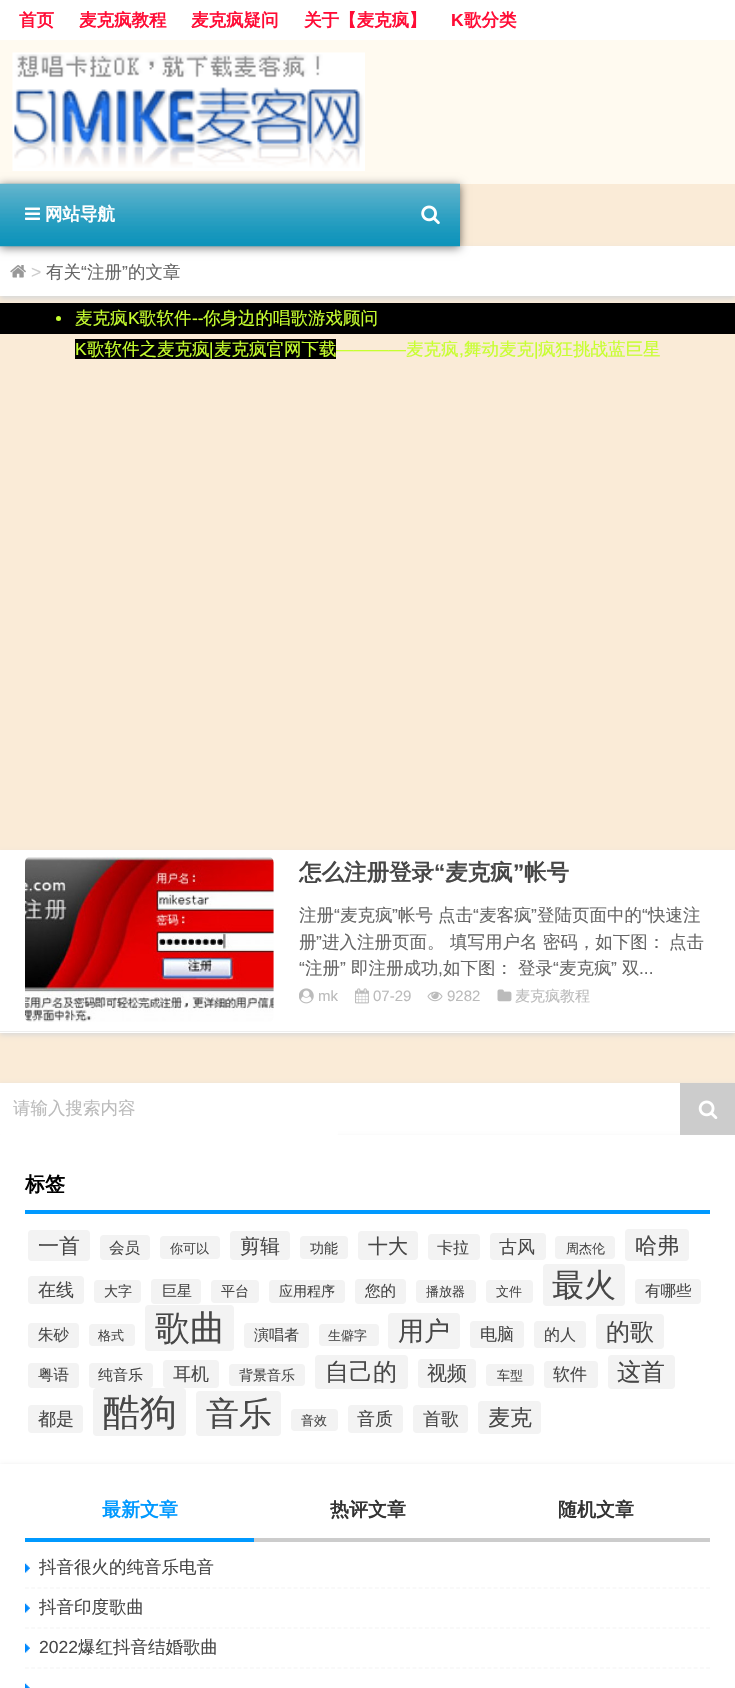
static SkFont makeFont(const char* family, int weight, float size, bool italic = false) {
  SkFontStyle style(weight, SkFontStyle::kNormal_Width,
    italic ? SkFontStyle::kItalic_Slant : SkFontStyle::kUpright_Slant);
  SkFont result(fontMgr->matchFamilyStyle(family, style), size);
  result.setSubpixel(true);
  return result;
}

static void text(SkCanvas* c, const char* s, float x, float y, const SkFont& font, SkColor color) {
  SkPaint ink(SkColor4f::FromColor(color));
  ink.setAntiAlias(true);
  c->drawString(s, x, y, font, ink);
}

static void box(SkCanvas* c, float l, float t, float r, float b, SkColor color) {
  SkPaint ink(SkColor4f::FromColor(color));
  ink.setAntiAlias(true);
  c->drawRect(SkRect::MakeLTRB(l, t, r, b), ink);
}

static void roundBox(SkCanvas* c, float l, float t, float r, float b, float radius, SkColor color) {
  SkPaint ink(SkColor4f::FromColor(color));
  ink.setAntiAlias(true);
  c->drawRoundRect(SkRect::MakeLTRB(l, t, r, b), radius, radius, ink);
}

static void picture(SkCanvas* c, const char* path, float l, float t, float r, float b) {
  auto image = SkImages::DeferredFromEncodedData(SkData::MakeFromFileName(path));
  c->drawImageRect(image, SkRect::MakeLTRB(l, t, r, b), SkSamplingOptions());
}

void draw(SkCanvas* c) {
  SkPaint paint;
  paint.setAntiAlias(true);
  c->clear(0xfffaebd7);
  box(c, 0, 0, 735, 40, 0xffffffff);
  SkFont face1 = makeFont("WenQuanYi Zen Hei", 700, 17.5f);
  text(c, "首页", 19, 26, face1, 0xffff0c36);
  text(c, "麦克疯教程", 79, 26, face1, 0xffff0c36);
  text(c, "麦克疯疑问", 191, 26, face1, 0xffff0c36);
  text(c, "关于【麦克疯】", 304, 26, face1, 0xffff0c36);
  SkFont face2 = makeFont("Liberation Sans", 700, 17.5f);
  text(c, "K", 451, 26, face2, 0xffff0c36);
  text(c, "歌分类", 464, 26, face1, 0xffff0c36);
  paint.setColor(0x1a000000);
  paint.setMaskFilter(SkMaskFilter::MakeBlur(kNormal_SkBlurStyle, 2.5f));
  c->drawRect(SkRect::MakeLTRB(0, 186, 460, 249), paint);
  paint.setMaskFilter(nullptr);
  box(c, 0, 40, 735, 184, 0xfffffaf0);
  picture(c, "img_01.png", 12, 52, 365, 171);
  paint.setColor(0xffd9d9d9);
  paint.setMaskFilter(SkMaskFilter::MakeBlur(kNormal_SkBlurStyle, 2.5f));
  c->drawRect(SkRect::MakeLTRB(0, 249, 735, 299), paint);
  paint.setMaskFilter(nullptr);
  box(c, 0, 246, 735, 296, 0xffffffff);
  paint.setColor(0x80000000);
  paint.setMaskFilter(SkMaskFilter::MakeBlur(kNormal_SkBlurStyle, 4.5f));
  c->drawRect(SkRect::MakeLTRB(0, 185, 460, 248), paint);
  paint.setMaskFilter(nullptr);
  picture(c, "img_02.png", 0, 183, 460, 247);
  picture(c, "img_03.png", 25, 207, 40, 220);
  text(c, "网站导航", 45, 220, face1, 0xffffffff);
  picture(c, "img_04.png", 421, 205, 440, 225);
  picture(c, "img_05.png", 10, 265, 26, 278);
  SkFont face3 = makeFont("Liberation Sans", 400, 17.5f);
  text(c, ">", 31, 278, face3, 0xffcccccc);
  SkFont face4 = makeFont("WenQuanYi Zen Hei", 500, 17.5f);
  text(c, "有关", 46, 278, face4, 0xff666666);
  text(c, "“", 81, 278, face3, 0xff666666);
  text(c, "注册", 87, 278, face4, 0xff666666);
  text(c, "”", 122, 278, face3, 0xff666666);
  text(c, "的文章", 128, 278, face4, 0xff666666);
  box(c, 0, 303, 735, 334, 0xff000000);
  paint.setColor(0xffc7ff2f);
  c->drawCircle(58.5f, 318.5f, 2.5f, paint);
  text(c, "麦克疯", 75, 324, face4, 0xffc7ff2f);
  text(c, "K", 128, 324, face3, 0xffc7ff2f);
  text(c, "歌软件", 139, 324, face4, 0xffc7ff2f);
  text(c, "--", 192, 324, face3, 0xffc7ff2f);
  text(c, "你身边的唱歌游戏顾问", 203, 324, face4, 0xffc7ff2f);
  box(c, 75, 339, 336, 359, 0xff000000);
  text(c, "K", 75, 355, face3, 0xffc7ff2f);
  text(c, "歌软件之麦克疯", 87, 355, face4, 0xffc7ff2f);
  text(c, "|", 209, 355, face3, 0xffc7ff2f);
  text(c, "麦克疯官网下载", 214, 355, face4, 0xffc7ff2f);
  text(c, "————", 336, 355, face3, 0xffc7ff2f);
  text(c, "麦克疯", 406, 355, face4, 0xffc7ff2f);
  text(c, "舞动麦克", 464, 355, face4, 0xffc7ff2f);
  text(c, "|", 534, 355, face3, 0xffc7ff2f);
  text(c, "疯狂挑战蓝巨星", 538, 355, face4, 0xffc7ff2f);
  text(c, ",", 459, 355, face3, 0xffc7ff2f);
  paint.setColor(0xffd9d9d9);
  paint.setMaskFilter(SkMaskFilter::MakeBlur(kNormal_SkBlurStyle, 2.5f));
  c->drawRect(SkRect::MakeLTRB(0, 853, 735, 1035), paint);
  paint.setMaskFilter(nullptr);
  box(c, 0, 850, 735, 1033, 0xffffffff);
  box(c, 0, 1031, 735, 1032, 0xffeeeeee);
  picture(c, "img_06.png", 25, 856, 274, 1022);
  SkFont face5 = makeFont("WenQuanYi Zen Hei", 700, 22.5f);
  text(c, "怎么注册登录", 299, 880, face5, 0xff474747);
  SkFont face6 = makeFont("Liberation Sans", 700, 22.5f);
  text(c, "“", 434, 880, face6, 0xff474747);
  text(c, "麦克疯", 445, 880, face5, 0xff474747);
  text(c, "”", 513, 880, face6, 0xff474747);
  text(c, "帐号", 524, 880, face5, 0xff474747);
  text(c, "注册", 299, 921, face4, 0xff666666);
  text(c, "“", 334, 921, face3, 0xff666666);
  text(c, "麦克疯", 340, 921, face4, 0xff666666);
  text(c, "”", 392, 921, face3, 0xff666666);
  text(c, "帐号", 398, 921, face4, 0xff666666);
  text(c, "点击", 438, 921, face4, 0xff666666);
  text(c, "“", 473, 921, face3, 0xff666666);
  text(c, "麦客疯", 479, 921, face4, 0xff666666);
  text(c, "”", 531, 921, face3, 0xff666666);
  text(c, "登陆页面中的", 537, 921, face4, 0xff666666);
  text(c, "“", 642, 921, face3, 0xff666666);
  text(c, "快速注", 648, 921, face4, 0xff666666);
  text(c, "册", 299, 948, face4, 0xff666666);
  text(c, "”", 316, 948, face3, 0xff666666);
  text(c, "进入注册页面。", 322, 948, face4, 0xff666666);
  text(c, "填写用户名 密码，如下图：", 450, 948, face4, 0xff666666);
  text(c, "点击", 669, 948, face4, 0xff666666);
  text(c, "“", 299, 974, face3, 0xff666666);
  text(c, "注册", 305, 974, face4, 0xff666666);
  text(c, "”", 340, 974, face3, 0xff666666);
  text(c, "即注册成功", 351, 974, face4, 0xff666666);
  text(c, "如下图：", 443, 974, face4, 0xff666666);
  text(c, "登录", 518, 974, face4, 0xff666666);
  text(c, "“", 553, 974, face3, 0xff666666);
  text(c, "麦克疯", 559, 974, face4, 0xff666666);
  text(c, "”", 611, 974, face3, 0xff666666);
  text(c, "双", 622, 974, face4, 0xff666666);
  text(c, ",", 438, 974, face3, 0xff666666);
  text(c, "...", 639, 974, face3, 0xff666666);
  picture(c, "img_07.png", 299, 988, 314, 1004);
  SkFont face7 = makeFont("Liberation Sans", 400, 15);
  text(c, "mk", 318, 1001, face7, 0xffbbbbbb);
  picture(c, "img_08.png", 355, 988, 369, 1004);
  text(c, "07-29", 373, 1001, face7, 0xffbbbbbb);
  picture(c, "img_09.png", 427, 991, 443, 1002);
  text(c, "9282", 447, 1001, face7, 0xffbbbbbb);
  picture(c, "img_10.png", 497, 989, 512, 1002);
  SkFont face8 = makeFont("WenQuanYi Zen Hei", 500, 15);
  text(c, "麦克疯教程", 515, 1001, face8, 0xffbbbbbb);
  paint.setMaskFilter(SkMaskFilter::MakeBlur(kNormal_SkBlurStyle, 2.5f));
  c->drawRect(SkRect::MakeLTRB(0, 1085, 735, 1138), paint);
  paint.setMaskFilter(nullptr);
  box(c, 0, 1083, 680, 1135, 0xffffffff);
  box(c, 680, 1083, 735, 1135, 0xffcccccc);
  paint.setMaskFilter(SkMaskFilter::MakeBlur(kNormal_SkBlurStyle, 2.5f));
  c->drawRect(SkRect::MakeLTRB(0, 1138, 735, 1466), paint);
  paint.setMaskFilter(nullptr);
  roundBox(c, 0, 1083, 338, 1135, 1, 0xffffffff);
  text(c, "请输入搜索内容", 13, 1114, face4, 0xffbbbbbb);
  picture(c, "img_11.png", 698, 1100, 718, 1119);
  box(c, 0, 1135, 735, 1464, 0xffffffff);
  box(c, 25, 1210, 710, 1214, 0xff0099ff);
  SkFont face9 = makeFont("WenQuanYi Zen Hei", 700, 20);
  text(c, "标签", 25, 1191, face9, 0xff000000);
  roundBox(c, 28, 1230, 90, 1261, 4, 0xfff3f3f3);
  SkFont face10 = makeFont("WenQuanYi Zen Hei", 500, 21);
  text(c, "一首", 38, 1253, face10, 0xff474747);
  roundBox(c, 100, 1235, 150, 1260, 4, 0xfff3f3f3);
  SkFont face11 = makeFont("WenQuanYi Zen Hei", 500, 15.5f);
  text(c, "会员", 109, 1253, face11, 0xff474747);
  roundBox(c, 160, 1236, 220, 1259, 4, 0xfff3f3f3);
  SkFont face12 = makeFont("WenQuanYi Zen Hei", 500, 13);
  text(c, "你可以", 170, 1253, face12, 0xff474747);
  roundBox(c, 230, 1231, 290, 1260, 4, 0xfff3f3f3);
  SkFont face13 = makeFont("WenQuanYi Zen Hei", 500, 20);
  text(c, "剪辑", 240, 1253, face13, 0xff474747);
  roundBox(c, 300, 1236, 348, 1259, 4, 0xfff3f3f3);
  SkFont face14 = makeFont("WenQuanYi Zen Hei", 500, 14);
  text(c, "功能", 310, 1253, face14, 0xff474747);
  roundBox(c, 358, 1231, 418, 1260, 4, 0xfff3f3f3);
  text(c, "十大", 368, 1253, face13, 0xff474747);
  roundBox(c, 428, 1234, 480, 1260, 4, 0xfff3f3f3);
  SkFont face15 = makeFont("WenQuanYi Zen Hei", 500, 16);
  text(c, "卡拉", 437, 1253, face15, 0xff474747);
  roundBox(c, 490, 1233, 546, 1260, 4, 0xfff3f3f3);
  SkFont face16 = makeFont("WenQuanYi Zen Hei", 500, 18);
  text(c, "古风", 499, 1253, face16, 0xff474747);
  roundBox(c, 555, 1236, 615, 1259, 4, 0xfff3f3f3);
  text(c, "周杰伦", 566, 1253, face12, 0xff474747);
  roundBox(c, 625, 1229, 689, 1261, 4, 0xfff3f3f3);
  SkFont face17 = makeFont("WenQuanYi Zen Hei", 500, 22);
  text(c, "哈弗", 635, 1253, face17, 0xff474747);
  roundBox(c, 28, 1276, 84, 1304, 4, 0xfff3f3f3);
  text(c, "在线", 38, 1296, face16, 0xff474747);
  roundBox(c, 94, 1280, 141, 1303, 4, 0xfff3f3f3);
  text(c, "大字", 104, 1296, face14, 0xff474747);
  roundBox(c, 151, 1279, 201, 1304, 4, 0xfff3f3f3);
  text(c, "巨星", 162, 1296, face8, 0xff474747);
  roundBox(c, 211, 1280, 259, 1303, 4, 0xfff3f3f3);
  text(c, "平台", 221, 1296, face14, 0xff474747);
  roundBox(c, 269, 1280, 345, 1303, 4, 0xfff3f3f3);
  text(c, "应用程序", 279, 1296, face14, 0xff474747);
  roundBox(c, 355, 1279, 406, 1304, 4, 0xfff3f3f3);
  text(c, "您的", 365, 1296, face11, 0xff474747);
  roundBox(c, 416, 1280, 476, 1303, 4, 0xfff3f3f3);
  text(c, "播放器", 426, 1296, face12, 0xff474747);
  roundBox(c, 486, 1280, 533, 1303, 4, 0xfff3f3f3);
  text(c, "文件", 496, 1296, face12, 0xff474747);
  roundBox(c, 543, 1264, 625, 1306, 4, 0xfff3f3f3);
  SkFont face18 = makeFont("WenQuanYi Zen Hei", 500, 32);
  text(c, "最火", 552, 1296, face18, 0xff474747);
  roundBox(c, 635, 1279, 701, 1304, 4, 0xfff3f3f3);
  text(c, "有哪些", 645, 1296, face11, 0xff474747);
  roundBox(c, 28, 1323, 79, 1348, 4, 0xfff3f3f3);
  text(c, "朱砂", 38, 1340, face11, 0xff474747);
  roundBox(c, 89, 1324, 135, 1346, 4, 0xfff3f3f3);
  text(c, "格式", 98, 1340, face12, 0xff474747);
  roundBox(c, 145, 1305, 234, 1351, 4, 0xfff3f3f3);
  SkFont face19 = makeFont("WenQuanYi Zen Hei", 500, 35);
  text(c, "歌曲", 155, 1340, face19, 0xff474747);
  roundBox(c, 244, 1323, 309, 1348, 4, 0xfff3f3f3);
  text(c, "演唱者", 254, 1340, face8, 0xff474747);
  roundBox(c, 319, 1324, 379, 1346, 4, 0xfff3f3f3);
  text(c, "生僻字", 328, 1340, face12, 0xff474747);
  roundBox(c, 388, 1313, 460, 1349, 4, 0xfff3f3f3);
  SkFont face20 = makeFont("WenQuanYi Zen Hei", 500, 26);
  text(c, "用户", 398, 1340, face20, 0xff474747);
  roundBox(c, 470, 1321, 524, 1348, 4, 0xfff3f3f3);
  SkFont face21 = makeFont("WenQuanYi Zen Hei", 500, 17);
  text(c, "电脑", 480, 1340, face21, 0xff474747);
  roundBox(c, 534, 1321, 586, 1348, 4, 0xfff3f3f3);
  text(c, "的人", 544, 1340, face15, 0xff474747);
  roundBox(c, 596, 1314, 664, 1349, 4, 0xfff3f3f3);
  SkFont face22 = makeFont("WenQuanYi Zen Hei", 500, 24);
  text(c, "的歌", 606, 1340, face22, 0xff474747);
  roundBox(c, 28, 1363, 79, 1388, 4, 0xfff3f3f3);
  text(c, "粤语", 38, 1380, face11, 0xff474747);
  roundBox(c, 89, 1363, 153, 1388, 4, 0xfff3f3f3);
  text(c, "纯音乐", 98, 1380, face8, 0xff474747);
  roundBox(c, 163, 1360, 219, 1388, 4, 0xfff3f3f3);
  text(c, "耳机", 173, 1380, face16, 0xff474747);
  roundBox(c, 229, 1364, 305, 1386, 4, 0xfff3f3f3);
  text(c, "背景音乐", 239, 1380, face14, 0xff474747);
  roundBox(c, 315, 1355, 408, 1389, 4, 0xfff3f3f3);
  text(c, "自己的", 325, 1380, face22, 0xff474747);
  roundBox(c, 418, 1359, 476, 1388, 4, 0xfff3f3f3);
  text(c, "视频", 427, 1380, face13, 0xff474747);
  roundBox(c, 486, 1364, 534, 1386, 4, 0xfff3f3f3);
  text(c, "车型", 497, 1380, face12, 0xff474747);
  roundBox(c, 544, 1361, 598, 1388, 4, 0xfff3f3f3);
  text(c, "软件", 553, 1380, face21, 0xff474747);
  roundBox(c, 608, 1355, 675, 1389, 4, 0xfff3f3f3);
  text(c, "这首", 617, 1380, face22, 0xff474747);
  roundBox(c, 28, 1405, 83, 1433, 4, 0xfff3f3f3);
  text(c, "都是", 38, 1425, face16, 0xff474747);
  roundBox(c, 93, 1388, 186, 1436, 4, 0xfff3f3f3);
  SkFont face23 = makeFont("WenQuanYi Zen Hei", 500, 37);
  text(c, "酷狗", 103, 1425, face23, 0xff474747);
  roundBox(c, 196, 1391, 281, 1436, 4, 0xfff3f3f3);
  SkFont face24 = makeFont("WenQuanYi Zen Hei", 500, 33);
  text(c, "音乐", 206, 1425, face24, 0xff474747);
  roundBox(c, 291, 1409, 338, 1431, 4, 0xfff3f3f3);
  text(c, "音效", 301, 1425, face12, 0xff474747);
  roundBox(c, 348, 1405, 403, 1433, 4, 0xfff3f3f3);
  text(c, "音质", 357, 1425, face16, 0xff474747);
  roundBox(c, 413, 1405, 468, 1433, 4, 0xfff3f3f3);
  text(c, "首歌", 423, 1425, face16, 0xff474747);
  roundBox(c, 478, 1401, 541, 1434, 4, 0xfff3f3f3);
  text(c, "麦克", 488, 1425, face17, 0xff474747);
  paint.setMaskFilter(SkMaskFilter::MakeBlur(kNormal_SkBlurStyle, 2.5f));
  c->drawRect(SkRect::MakeLTRB(0, 1466, 735, 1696), paint);
  paint.setMaskFilter(nullptr);
  box(c, 0, 1464, 735, 1688, 0xffffffff);
  box(c, 25, 1538, 254, 1542, 0xff0099ff);
  SkFont face25 = makeFont("WenQuanYi Zen Hei", 700, 19);
  text(c, "最新文章", 102, 1516, face25, 0xff0099ff);
  box(c, 254, 1538, 710, 1542, 0xffcccccc);
  text(c, "热评文章", 330, 1516, face25, 0xff333333);
  text(c, "随机文章", 558, 1516, face25, 0xff333333);
  picture(c, "img_12.png", 25, 1563, 30, 1573);
  paint.setStyle(SkPaint::kStroke_Style);
  paint.setStrokeWidth(1.2f);
  paint.setColor(0xfff3f3f3);
  paint.setPathEffect(SkDashPathEffect::Make({{3.75f, 2.5f}}, 0));
  c->drawPath(SkPathBuilder().moveTo(25, 1588).lineTo(710, 1588).detach(), paint);
  paint.setPathEffect(nullptr);
  text(c, "抖音很火的纯音乐电音", 39, 1573, face4, 0xff474747);
  picture(c, "img_13.png", 25, 1603, 30, 1613);
  paint.setPathEffect(SkDashPathEffect::Make({{3.75f, 2.5f}}, 0));
  c->drawPath(SkPathBuilder().moveTo(25, 1628).lineTo(710, 1628).detach(), paint);
  paint.setPathEffect(nullptr);
  text(c, "抖音印度歌曲", 39, 1613, face4, 0xff474747);
  picture(c, "img_13.png", 25, 1643, 30, 1653);
  paint.setPathEffect(SkDashPathEffect::Make({{3.75f, 2.5f}}, 0));
  c->drawPath(SkPathBuilder().moveTo(25, 1668).lineTo(710, 1668).detach(), paint);
  paint.setPathEffect(nullptr);
  text(c, "2022", 39, 1653, face3, 0xff474747);
  text(c, "爆红抖音结婚歌曲", 78, 1653, face4, 0xff474747);
  picture(c, "img_14.png", 25, 1683, 30, 1688);
}
